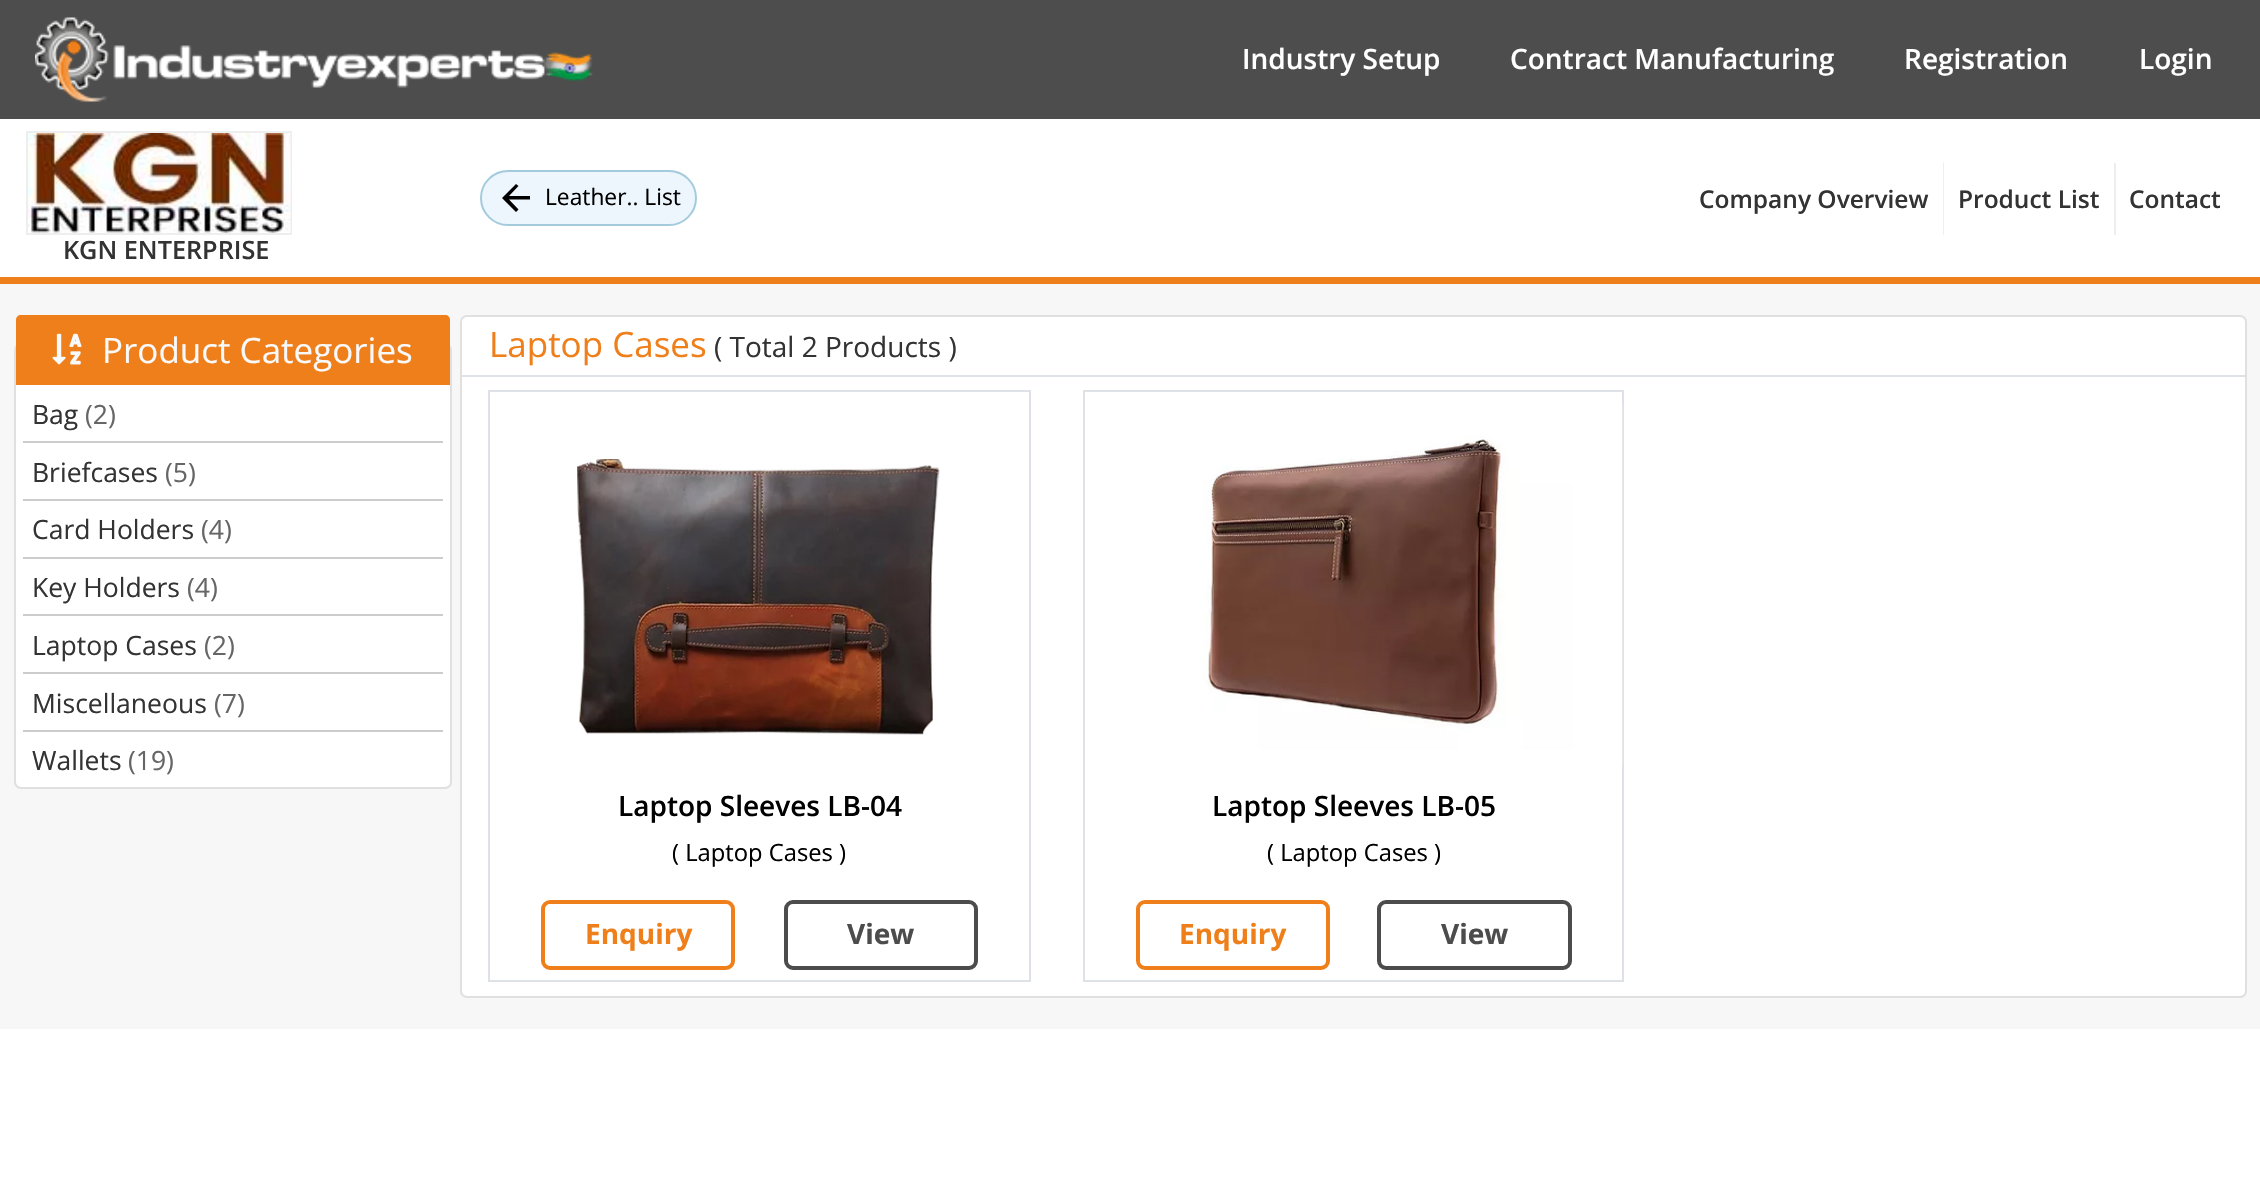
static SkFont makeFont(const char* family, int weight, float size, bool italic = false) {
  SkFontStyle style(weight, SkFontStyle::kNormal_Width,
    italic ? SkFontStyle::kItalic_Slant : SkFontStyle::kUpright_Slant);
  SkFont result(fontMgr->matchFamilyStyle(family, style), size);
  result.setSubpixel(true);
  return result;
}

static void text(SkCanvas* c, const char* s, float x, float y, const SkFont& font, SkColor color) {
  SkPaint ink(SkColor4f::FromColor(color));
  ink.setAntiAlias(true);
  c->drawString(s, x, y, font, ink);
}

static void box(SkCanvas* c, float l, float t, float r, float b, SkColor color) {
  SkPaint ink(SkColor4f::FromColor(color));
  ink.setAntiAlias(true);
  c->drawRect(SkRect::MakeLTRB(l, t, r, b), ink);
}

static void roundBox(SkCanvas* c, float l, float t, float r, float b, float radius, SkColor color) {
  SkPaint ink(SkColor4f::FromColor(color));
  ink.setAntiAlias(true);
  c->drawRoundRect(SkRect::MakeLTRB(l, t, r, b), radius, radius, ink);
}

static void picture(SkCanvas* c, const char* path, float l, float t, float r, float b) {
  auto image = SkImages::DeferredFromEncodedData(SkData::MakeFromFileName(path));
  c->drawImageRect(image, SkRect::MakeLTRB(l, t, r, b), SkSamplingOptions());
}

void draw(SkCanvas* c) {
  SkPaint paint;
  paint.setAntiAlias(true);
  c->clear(0xffffffff);
  box(c, 0, 0, 2260, 119, 0xff4d4d4d);
  picture(c, "img_01.png", 35, 17, 593, 102);
  SkFont face1 = makeFont("Open Sans", 600, 28);
  text(c, "Industry Setup", 1242, 69, face1, 0xffffffff);
  text(c, "Contract Manufacturing", 1510, 69, face1, 0xffffffff);
  text(c, "Registration", 1904, 69, face1, 0xffffffff);
  text(c, "Login", 2139, 69, face1, 0xffffffff);
  box(c, 0, 277, 2260, 284, 0xffef7f1a);
  paint.setColor(0xffeef6fd);
  c->drawRoundRect(SkRect::MakeLTRB(481, 171, 696, 225), 27, 27, paint);
  paint.setStyle(SkPaint::kStroke_Style);
  paint.setStrokeWidth(2);
  paint.setColor(0xffa3cbdd);
  c->drawRoundRect(SkRect::MakeLTRB(481, 171, 696, 225), 27, 27, paint);
  paint.setStyle(SkPaint::kFill_Style);
  paint.setColor(0xff000000);
  c->drawPath(SkPathBuilder().moveTo(530, 196).lineTo(509, 196).lineTo(518.5f, 186).lineTo(516, 184).lineTo(502, 198).lineTo(516, 212).lineTo(518.5f, 209.5f).lineTo(509, 199.5f).lineTo(530, 199.5f).close().detach(), paint);
  SkFont face2 = makeFont("Open Sans", 400, 22.75f);
  text(c, "Leather.. List", 545, 205, face2, 0xff000000);
  box(c, 1943, 163, 1944, 235, 0xffeeeeee);
  SkFont face3 = makeFont("Open Sans", 600, 24.5f);
  text(c, "Company Overview", 1699, 208, face3, 0xff333333);
  box(c, 2114, 163, 2116, 235, 0xffeeeeee);
  text(c, "Product List", 1958, 208, face3, 0xff333333);
  text(c, "Contact", 2129, 208, face3, 0xff333333);
  paint.setStyle(SkPaint::kStroke_Style);
  paint.setColor(0xffeeeeee);
  c->drawRect(SkRect::MakeLTRB(27, 132, 291, 234), paint);
  picture(c, "img_02.png", 28, 133, 291, 233);
  SkFont face4 = makeFont("Open Sans", 600, 25.25f);
  text(c, "KGN ENTERPRISE", 63, 259, face4, 0xff333333);
  box(c, 0, 284, 2260, 1029, 0xfff7f7f7);
  roundBox(c, 14, 343, 452, 789, 7, 0xffffffff);
  paint.setColor(0x1f000000);
  c->drawRoundRect(SkRect::MakeLTRB(15, 344, 451, 788), 6, 6, paint);
  paint.setStyle(SkPaint::kFill_Style);
  paint.setColor(0xffef7f1a);
  c->drawPath(SkPathBuilder().moveTo(21, 315).lineTo(445, 315).cubicTo(448, 315, 450, 317, 450, 320).lineTo(450, 385).lineTo(16, 385).lineTo(16, 320).cubicTo(16, 317, 18, 315, 21, 315).close().detach(), paint);
  picture(c, "img_03.png", 52, 333, 82, 365);
  SkFont face5 = makeFont("Open Sans", 400, 35);
  text(c, "Product Categories", 102, 363, face5, 0xfff8f9fa);
  box(c, 23, 441, 443, 443, 0xffcccccc);
  SkFont face6 = makeFont("Open Sans", 400, 26.5f);
  text(c, "Bag", 32, 424, face6, 0xff333333);
  text(c, "(2)", 85, 424, face6, 0xff666666);
  box(c, 23, 499, 443, 501, 0xffcccccc);
  text(c, "Briefcases", 32, 482, face6, 0xff333333);
  text(c, "(5)", 165, 482, face6, 0xff666666);
  box(c, 23, 557, 443, 559, 0xffcccccc);
  text(c, "Card Holders", 32, 539, face6, 0xff333333);
  text(c, "(4)", 201, 539, face6, 0xff666666);
  box(c, 23, 614, 443, 616, 0xffcccccc);
  text(c, "Key Holders", 32, 597, face6, 0xff333333);
  text(c, "(4)", 187, 597, face6, 0xff666666);
  box(c, 23, 672, 443, 674, 0xffcccccc);
  text(c, "Laptop Cases", 32, 655, face6, 0xff333333);
  text(c, "(2)", 204, 655, face6, 0xff666666);
  box(c, 23, 730, 443, 732, 0xffcccccc);
  text(c, "Miscellaneous", 32, 713, face6, 0xff333333);
  text(c, "(7)", 214, 713, face6, 0xff666666);
  text(c, "Wallets", 32, 770, face6, 0xff333333);
  text(c, "(19)", 128, 770, face6, 0xff666666);
  roundBox(c, 460, 315, 2247, 998, 7, 0xffffffff);
  paint.setStyle(SkPaint::kStroke_Style);
  paint.setColor(0x1f000000);
  c->drawRoundRect(SkRect::MakeLTRB(461, 316, 2246, 997), 6, 6, paint);
  box(c, 462, 375, 2245, 377, 0xffdee2e6);
  text(c, "Laptop Cases", 489, 357, face5, 0xffef7f1a);
  SkFont face7 = makeFont("Open Sans", 400, 28);
  text(c, "( Total 2 Products )", 714, 357, face7, 0xff333333);
  paint.setColor(0xffdee2e6);
  c->drawRect(SkRect::MakeLTRB(489, 391, 1030, 981), paint);
  picture(c, "img_04.png", 577, 459, 940, 735);
  text(c, "Laptop Sleeves LB-04", 618, 816, face1, 0xff000000);
  SkFont face8 = makeFont("Open Sans", 400, 23.75f);
  text(c, "( Laptop Cases )", 672, 861, face8, 0xff000000);
  paint.setStrokeWidth(4);
  paint.setColor(0xffef7f1a);
  c->drawRoundRect(SkRect::MakeLTRB(543, 902, 733, 968), 7, 7, paint);
  SkFont face9 = makeFont("Open Sans", 700, 28);
  text(c, "Enquiry", 585, 944, face9, 0xffef7f1a);
  paint.setColor(0xff4c4c4c);
  c->drawRoundRect(SkRect::MakeLTRB(786, 902, 976, 968), 7, 7, paint);
  text(c, "View", 847, 944, face9, 0xff4c4c4c);
  paint.setStrokeWidth(2);
  paint.setColor(0xffdee2e6);
  c->drawRect(SkRect::MakeLTRB(1084, 391, 1623, 981), paint);
  picture(c, "img_05.png", 1204, 406, 1623, 765);
  text(c, "Laptop Sleeves LB-05", 1212, 816, face1, 0xff000000);
  text(c, "( Laptop Cases )", 1267, 861, face8, 0xff000000);
  paint.setStrokeWidth(4);
  paint.setColor(0xffef7f1a);
  c->drawRoundRect(SkRect::MakeLTRB(1138, 902, 1328, 968), 7, 7, paint);
  text(c, "Enquiry", 1179, 944, face9, 0xffef7f1a);
  paint.setColor(0xff4c4c4c);
  c->drawRoundRect(SkRect::MakeLTRB(1379, 902, 1570, 968), 7, 7, paint);
  text(c, "View", 1441, 944, face9, 0xff4c4c4c);
}
